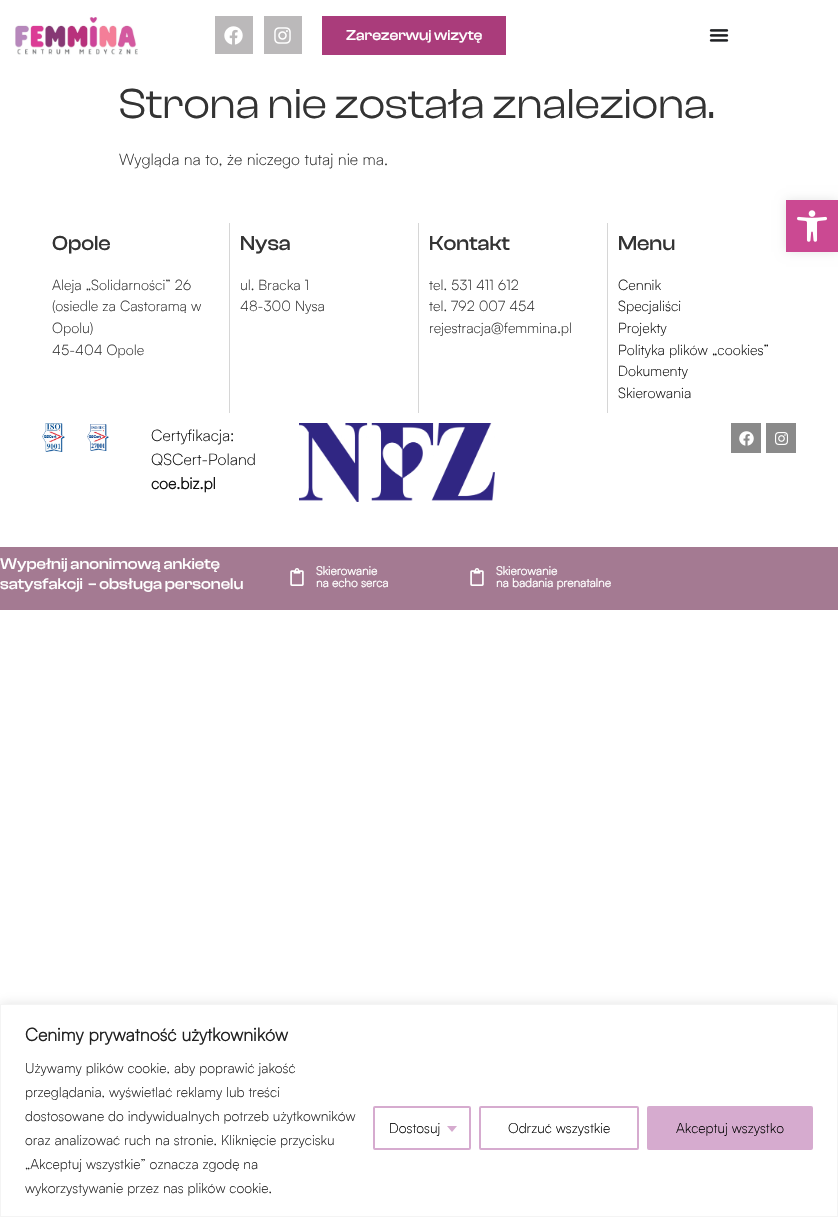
static SkFont makeFont(const char* family, int weight, float size, bool italic = false) {
  SkFontStyle style(weight, SkFontStyle::kNormal_Width,
    italic ? SkFontStyle::kItalic_Slant : SkFontStyle::kUpright_Slant);
  SkFont result(fontMgr->matchFamilyStyle(family, style), size);
  result.setSubpixel(true);
  return result;
}

static void text(SkCanvas* c, const char* s, float x, float y, const SkFont& font, SkColor color) {
  SkPaint ink(SkColor4f::FromColor(color));
  ink.setAntiAlias(true);
  c->drawString(s, x, y, font, ink);
}

static void box(SkCanvas* c, float l, float t, float r, float b, SkColor color) {
  SkPaint ink(SkColor4f::FromColor(color));
  ink.setAntiAlias(true);
  c->drawRect(SkRect::MakeLTRB(l, t, r, b), ink);
}

static void picture(SkCanvas* c, const char* path, float l, float t, float r, float b) {
  auto image = SkImages::DeferredFromEncodedData(SkData::MakeFromFileName(path));
  c->drawImageRect(image, SkRect::MakeLTRB(l, t, r, b), SkSamplingOptions());
}

void draw(SkCanvas* c) {
  SkPaint paint;
  paint.setAntiAlias(true);
  c->clear(0xffffffff);
  picture(c, "img_01.png", 15, 17, 138, 55);
  box(c, 215, 16, 253, 54, 0xffbbb9ba);
  picture(c, "img_02.png", 224, 26, 243, 45);
  box(c, 264, 16, 302, 54, 0xffbbb9ba);
  picture(c, "img_03.png", 274, 27, 291, 44);
  box(c, 322, 16, 506, 55, 0xffaa3c7b);
  SkFont face1 = makeFont("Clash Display", 500, 15);
  text(c, "Zarezerwuj wizytę", 346, 40, face1, 0xffffffff);
  picture(c, "img_04.png", 709, 29, 729, 42);
  SkFont face2 = makeFont("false", 400, 43.25f);
  text(c, "Strona nie została znaleziona.", 119, 118, face2, 0xff333333);
  SkFont face3 = makeFont("Satoshi", 300, 16);
  text(c, "Wygląda na to, że niczego tutaj nie ma.", 119, 165, face3, 0xff333333);
  paint.setColor(0x1a000000);
  paint.setMaskFilter(SkMaskFilter::MakeBlur(kNormal_SkBlurStyle, 5));
  c->drawRect(SkRect::MakeLTRB(786, 200, 838, 252), paint);
  paint.setMaskFilter(nullptr);
  box(c, 786, 200, 838, 252, 0xffcb4992);
  picture(c, "img_05.png", 797, 210, 827, 242);
  box(c, 229, 223, 230, 413, 0xffd6d6d6);
  SkFont face4 = makeFont("Clash Display", 500, 21);
  text(c, "Opole", 52, 250, face4, 0xff333333);
  SkFont face5 = makeFont("Satoshi", 300, 14.4f);
  text(c, "Aleja „Solidarności” 26", 52, 290, face5, 0xff333333);
  text(c, "(osiedle za Castoramą w", 52, 311, face5, 0xff333333);
  text(c, "Opolu)", 52, 333, face5, 0xff333333);
  text(c, "45-404 Opole", 52, 355, face5, 0xff333333);
  box(c, 418, 223, 419, 413, 0xffd6d6d6);
  text(c, "Nysa", 240, 250, face4, 0xff333333);
  text(c, "ul. Bracka 1", 240, 290, face5, 0xff333333);
  text(c, "48-300 Nysa", 240, 311, face5, 0xff333333);
  box(c, 607, 223, 608, 413, 0xffd6d6d6);
  text(c, "Kontakt", 429, 250, face4, 0xff333333);
  text(c, "tel. 531 411 612", 429, 290, face5, 0xff333333);
  text(c, "tel. 792 007 454", 429, 311, face5, 0xff333333);
  text(c, "rejestracja@femmina.pl", 429, 333, face5, 0xff333333);
  text(c, "Menu", 618, 250, face4, 0xff333333);
  text(c, "Cennik", 618, 290, face5, 0xff121212);
  text(c, "Specjaliści", 618, 311, face5, 0xff121212);
  text(c, "Projekty", 618, 333, face5, 0xff121212);
  text(c, "Polityka plików „cookies”", 618, 355, face5, 0xff121212);
  text(c, "Dokumenty", 618, 376, face5, 0xff121212);
  text(c, "Skierowania", 618, 398, face5, 0xff121212);
  picture(c, "img_06.png", 42, 423, 65, 452);
  picture(c, "img_07.png", 87, 424, 109, 451);
  text(c, "Certyfikacja:", 151, 441, face3, 0xff121212);
  text(c, "QSCert-Poland", 151, 465, face3, 0xff121212);
  SkFont face6 = makeFont("Satoshi", 700, 16);
  text(c, "coe.biz.pl", 151, 489, face6, 0xff121212);
  picture(c, "img_08.png", 299, 423, 495, 502);
  box(c, 731, 423, 761, 453, 0xff8a8a8a);
  picture(c, "img_09.png", 739, 431, 754, 446);
  box(c, 766, 423, 796, 453, 0xff8a8a8a);
  picture(c, "img_10.png", 775, 432, 788, 445);
  box(c, 0, 547, 838, 610, 0xffa47a92);
  SkFont face7 = makeFont("Clash Display", 500, 16);
  text(c, "Wypełnij anonimową ankietę", 0, 569, face7, 0xffffffff);
  text(c, "satysfakcji  – obsługa personelu", 0, 589, face7, 0xffffffff);
  picture(c, "img_11.png", 290, 568, 304, 586);
  SkFont face8 = makeFont("Satoshi", 700, 12);
  text(c, "Skierowanie", 316, 575, face8, 0xffffffff);
  text(c, "na echo serca", 316, 587, face8, 0xffffffff);
  picture(c, "img_11.png", 470, 568, 484, 586);
  text(c, "Skierowanie", 496, 575, face8, 0xffffffff);
  text(c, "na badania prenatalne", 496, 587, face8, 0xffffffff);
  paint.setColor(0x4dacabab);
  paint.setMaskFilter(SkMaskFilter::MakeBlur(kNormal_SkBlurStyle, 5));
  c->drawRect(SkRect::MakeLTRB(0, 1003, 838, 1216), paint);
  paint.setMaskFilter(nullptr);
  paint.setColor(0xffffffff);
  c->drawRect(SkRect::MakeLTRB(0.5f, 1004.5f, 837.5f, 1216.5f), paint);
  paint.setStyle(SkPaint::kStroke_Style);
  paint.setStrokeWidth(1);
  paint.setColor(0xfff4f4f4);
  c->drawRect(SkRect::MakeLTRB(0.5f, 1004.5f, 837.5f, 1216.5f), paint);
  SkFont face9 = makeFont("Satoshi", 700, 18);
  text(c, "Cenimy prywatność użytkowników", 25, 1041, face9, 0xff212121);
  SkFont face10 = makeFont("Satoshi", 300, 14);
  text(c, "Używamy plików cookie, aby poprawić jakość", 25, 1073, face10, 0xff212121);
  text(c, "przeglądania, wyświetlać reklamy lub treści", 25, 1097, face10, 0xff212121);
  text(c, "dostosowane do indywidualnych potrzeb użytkowników", 25, 1121, face10, 0xff212121);
  text(c, "oraz analizować ruch na stronie. Kliknięcie przycisku", 25, 1145, face10, 0xff212121);
  text(c, "„Akceptuj wszystkie” oznacza zgodę na", 25, 1169, face10, 0xff212121);
  text(c, "wykorzystywanie przez nas plików cookie.", 25, 1193, face10, 0xff212121);
  paint.setStrokeWidth(2);
  paint.setColor(0xffd6abcf);
  c->drawRoundRect(SkRect::MakeLTRB(374, 1107, 470, 1149), 1, 1, paint);
  text(c, "Dostosuj", 389, 1133, face10, 0xff000000);
  paint.setStyle(SkPaint::kFill_Style);
  c->drawPath(SkPathBuilder().moveTo(447, 1126).lineTo(457, 1126).lineTo(452, 1132).close().detach(), paint);
  paint.setStyle(SkPaint::kStroke_Style);
  c->drawRoundRect(SkRect::MakeLTRB(480, 1107, 638, 1149), 1, 1, paint);
  text(c, "Odrzuć wszystkie", 508, 1133, face10, 0xff000000);
  paint.setStyle(SkPaint::kFill_Style);
  c->drawRoundRect(SkRect::MakeLTRB(648, 1107, 812, 1149), 1, 1, paint);
  paint.setStyle(SkPaint::kStroke_Style);
  c->drawRoundRect(SkRect::MakeLTRB(648, 1107, 812, 1149), 1, 1, paint);
  text(c, "Akceptuj wszystko", 676, 1133, face10, 0xff000000);
}
